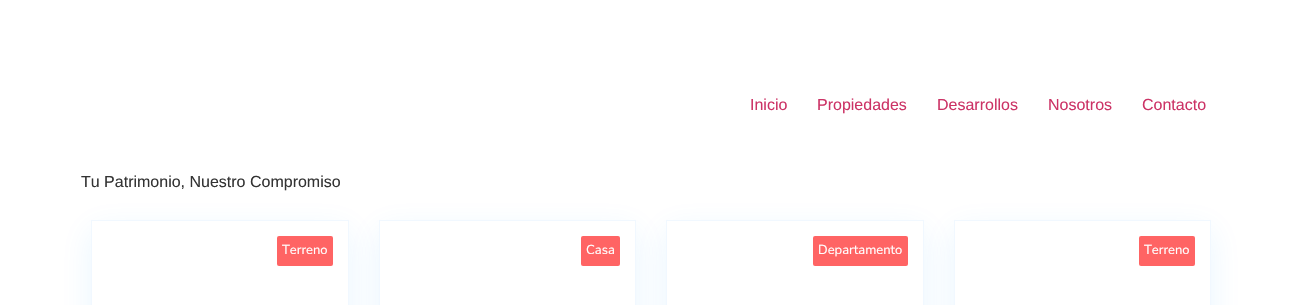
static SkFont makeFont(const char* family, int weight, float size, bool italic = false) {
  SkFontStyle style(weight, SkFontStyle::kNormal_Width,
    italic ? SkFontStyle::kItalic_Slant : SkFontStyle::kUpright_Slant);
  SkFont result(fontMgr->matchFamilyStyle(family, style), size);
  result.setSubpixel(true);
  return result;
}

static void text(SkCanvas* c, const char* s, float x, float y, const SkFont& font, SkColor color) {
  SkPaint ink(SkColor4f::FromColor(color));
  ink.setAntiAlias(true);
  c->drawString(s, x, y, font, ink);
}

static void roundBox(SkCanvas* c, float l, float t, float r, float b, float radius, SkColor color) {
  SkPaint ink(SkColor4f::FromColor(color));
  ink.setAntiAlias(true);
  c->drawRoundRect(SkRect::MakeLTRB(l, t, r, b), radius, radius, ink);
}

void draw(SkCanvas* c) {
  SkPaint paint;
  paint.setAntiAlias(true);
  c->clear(0xffffffff);
  SkFont face1 = makeFont("Liberation Sans", 400, 16);
  text(c, "Inicio", 750, 110, face1, 0xffcc3366);
  text(c, "Propiedades", 817, 110, face1, 0xffcc3366);
  text(c, "Desarrollos", 937, 110, face1, 0xffcc3366);
  text(c, "Nosotros", 1048, 110, face1, 0xffcc3366);
  text(c, "Contacto", 1142, 110, face1, 0xffcc3366);
  text(c, "Tu Patrimonio, Nuestro Compromiso", 81, 187, face1, 0xff333333);
  c->save();
  c->clipPath(SkPathBuilder(SkPathFillType::kEvenOdd).moveTo(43, 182).lineTo(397, 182).lineTo(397, 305).lineTo(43, 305).close().moveTo(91, 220).lineTo(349, 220).lineTo(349, 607).lineTo(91, 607).close().detach(), true);
  paint.setColor(0x170798ff);
  paint.setMaskFilter(SkMaskFilter::MakeBlur(kNormal_SkBlurStyle, 15.5f));
  c->drawRect(SkRect::MakeLTRB(91, 230, 349, 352), paint);
  paint.setMaskFilter(nullptr);
  c->restore();
  paint.setStyle(SkPaint::kStroke_Style);
  paint.setStrokeWidth(1);
  paint.setColor(0xfff1f8ff);
  c->drawRect(SkRect::MakeLTRB(91.5f, 220.5f, 348.5f, 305.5f), paint);
  c->save();
  c->clipPath(SkPathBuilder(SkPathFillType::kEvenOdd).moveTo(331, 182).lineTo(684, 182).lineTo(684, 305).lineTo(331, 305).close().moveTo(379, 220).lineTo(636, 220).lineTo(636, 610).lineTo(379, 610).close().detach(), true);
  paint.setStyle(SkPaint::kFill_Style);
  paint.setColor(0x170798ff);
  paint.setMaskFilter(SkMaskFilter::MakeBlur(kNormal_SkBlurStyle, 15.5f));
  c->drawRect(SkRect::MakeLTRB(379, 230, 636, 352), paint);
  paint.setMaskFilter(nullptr);
  c->restore();
  roundBox(c, 277, 236, 333, 266, 2, 0xffff6464);
  SkFont face2 = makeFont("Nunito Sans", 400, 13);
  text(c, "Terreno", 282, 254, face2, 0xffffffff);
  paint.setStyle(SkPaint::kStroke_Style);
  paint.setColor(0xfff1f8ff);
  c->drawRect(SkRect::MakeLTRB(379.5f, 220.5f, 635.5f, 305.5f), paint);
  c->save();
  c->clipPath(SkPathBuilder(SkPathFillType::kEvenOdd).moveTo(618, 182).lineTo(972, 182).lineTo(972, 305).lineTo(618, 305).close().moveTo(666, 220).lineTo(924, 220).lineTo(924, 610).lineTo(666, 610).close().detach(), true);
  paint.setStyle(SkPaint::kFill_Style);
  paint.setColor(0x170798ff);
  paint.setMaskFilter(SkMaskFilter::MakeBlur(kNormal_SkBlurStyle, 15.5f));
  c->drawRect(SkRect::MakeLTRB(666, 230, 924, 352), paint);
  paint.setMaskFilter(nullptr);
  c->restore();
  roundBox(c, 581, 236, 620, 266, 2, 0xffff6464);
  text(c, "Casa", 586, 254, face2, 0xffffffff);
  paint.setStyle(SkPaint::kStroke_Style);
  paint.setColor(0xfff1f8ff);
  c->drawRect(SkRect::MakeLTRB(666.5f, 220.5f, 923.5f, 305.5f), paint);
  c->save();
  c->clipPath(SkPathBuilder(SkPathFillType::kEvenOdd).moveTo(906, 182).lineTo(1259, 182).lineTo(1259, 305).lineTo(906, 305).close().moveTo(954, 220).lineTo(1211, 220).lineTo(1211, 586).lineTo(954, 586).close().detach(), true);
  paint.setStyle(SkPaint::kFill_Style);
  paint.setColor(0x170798ff);
  paint.setMaskFilter(SkMaskFilter::MakeBlur(kNormal_SkBlurStyle, 15.5f));
  c->drawRect(SkRect::MakeLTRB(954, 230, 1211, 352), paint);
  paint.setMaskFilter(nullptr);
  c->restore();
  roundBox(c, 813, 236, 908, 266, 2, 0xffff6464);
  text(c, "Departamento", 818, 254, face2, 0xffffffff);
  paint.setStyle(SkPaint::kStroke_Style);
  paint.setColor(0xfff1f8ff);
  c->drawRect(SkRect::MakeLTRB(954.5f, 220.5f, 1210.5f, 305.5f), paint);
  roundBox(c, 1139, 236, 1195, 266, 2, 0xffff6464);
  text(c, "Terreno", 1144, 254, face2, 0xffffffff);
}
